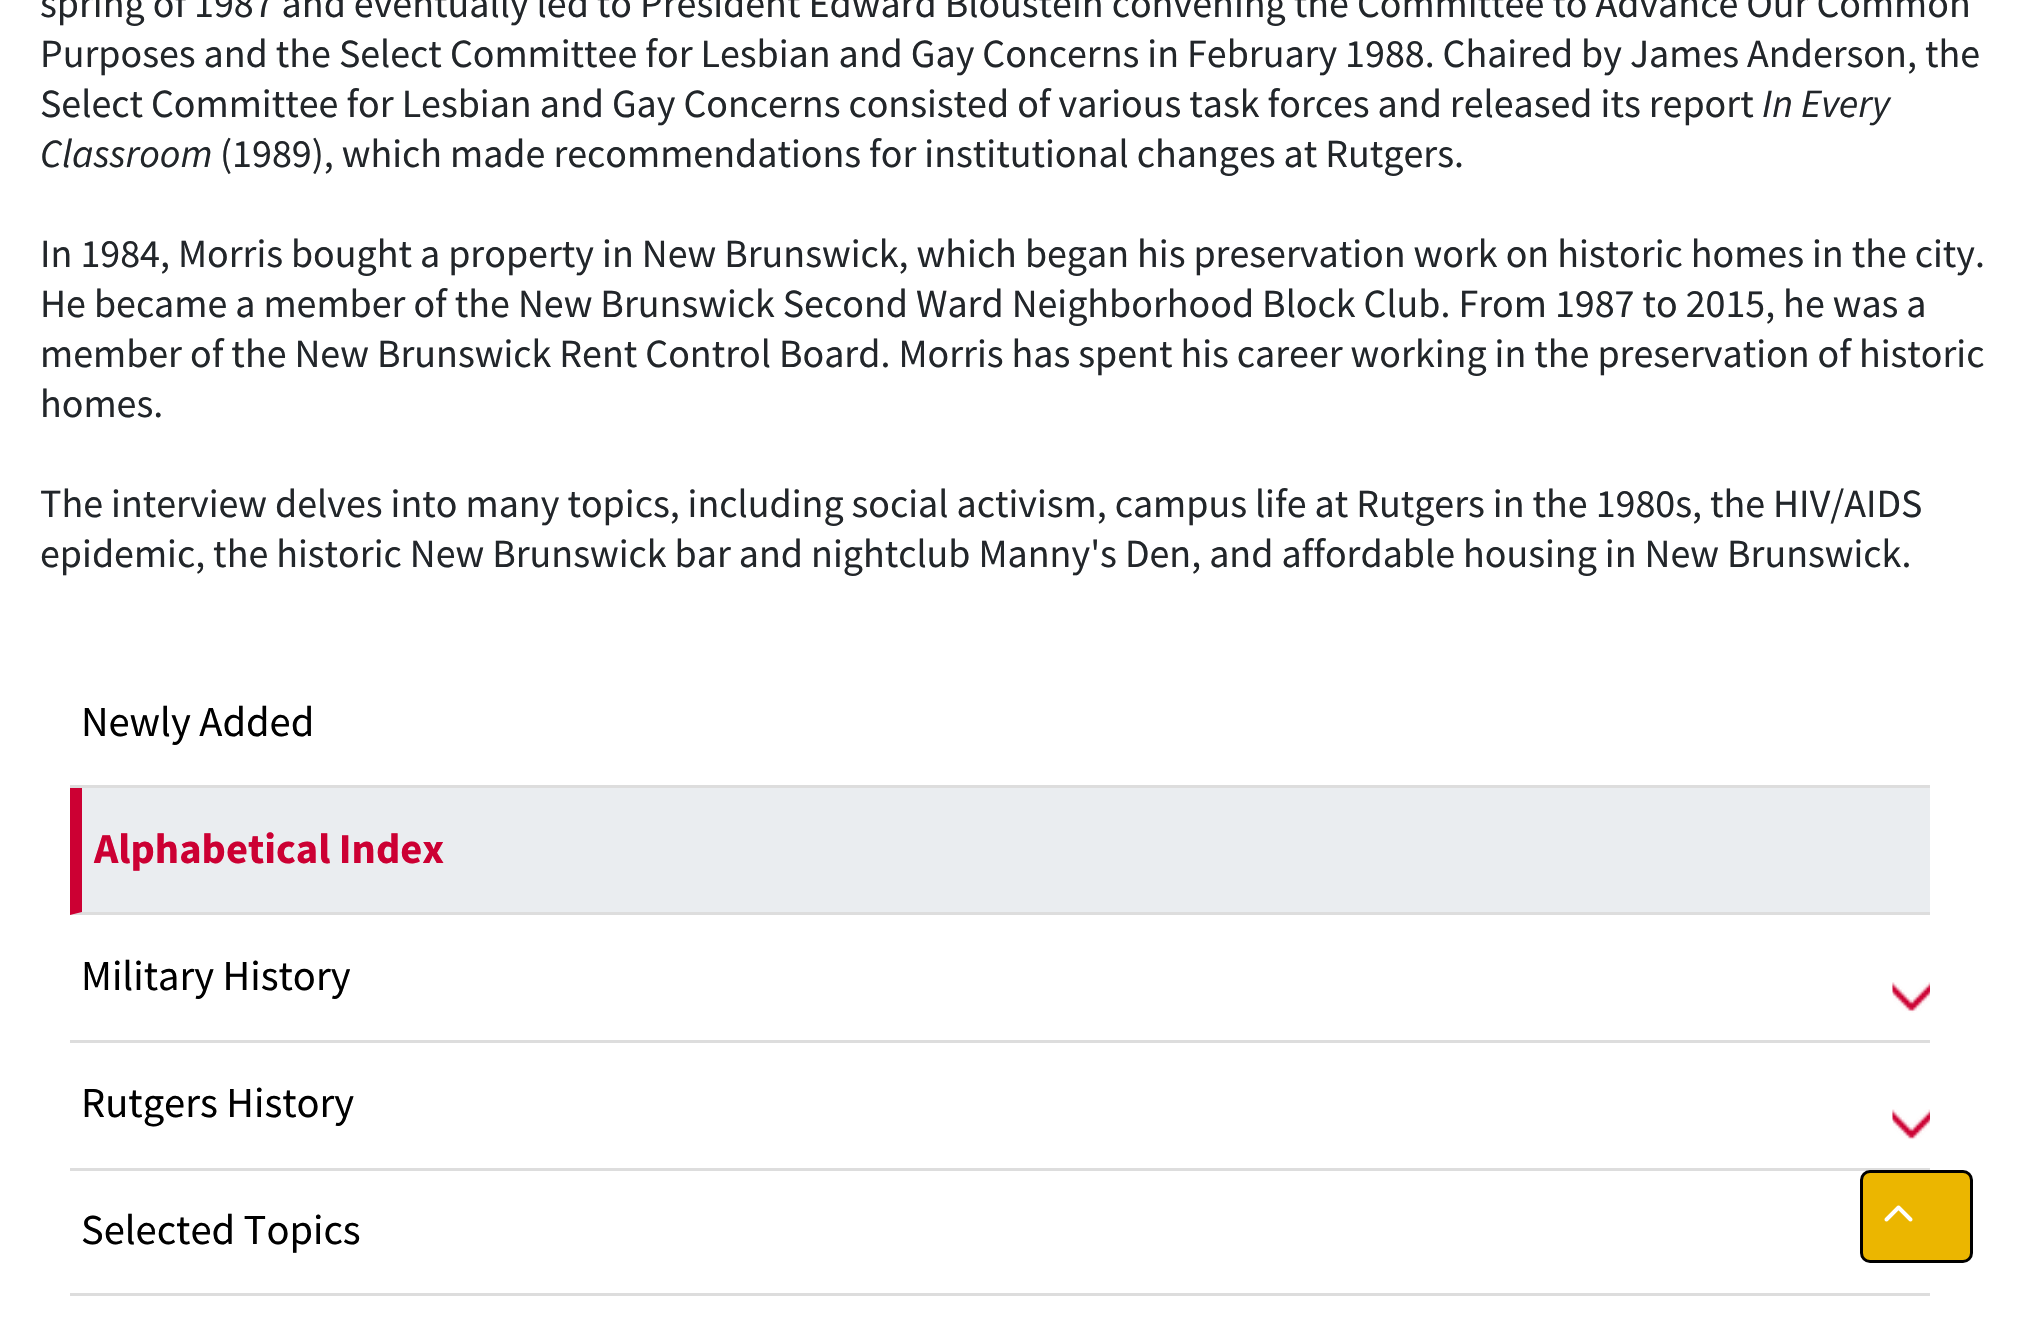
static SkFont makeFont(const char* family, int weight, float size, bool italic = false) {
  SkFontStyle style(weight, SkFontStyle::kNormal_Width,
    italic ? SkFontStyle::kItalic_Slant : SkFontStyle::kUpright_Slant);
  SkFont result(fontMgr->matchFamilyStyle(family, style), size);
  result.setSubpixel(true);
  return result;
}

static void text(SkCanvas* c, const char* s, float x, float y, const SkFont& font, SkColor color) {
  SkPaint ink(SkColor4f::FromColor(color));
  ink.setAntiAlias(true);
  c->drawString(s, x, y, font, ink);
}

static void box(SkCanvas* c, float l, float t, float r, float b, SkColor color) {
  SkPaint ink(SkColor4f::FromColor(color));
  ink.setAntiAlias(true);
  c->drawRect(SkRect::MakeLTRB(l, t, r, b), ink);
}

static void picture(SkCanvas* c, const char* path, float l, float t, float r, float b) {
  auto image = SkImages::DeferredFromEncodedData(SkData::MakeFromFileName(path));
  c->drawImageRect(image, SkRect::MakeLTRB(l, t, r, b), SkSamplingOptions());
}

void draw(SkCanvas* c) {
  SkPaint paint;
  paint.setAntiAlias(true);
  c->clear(0xffffffff);
  SkFont face1 = makeFont("Source Sans Pro", 400, 40);
  text(c, "spring of 1987 and eventually led to President Edward Bloustein convening the Committee to Advance Our Common", 40, 17, face1, 0xff22262a);
  text(c, "Purposes and the Select Committee for Lesbian and Gay Concerns in February 1988. Chaired by James Anderson, the", 40, 67, face1, 0xff22262a);
  text(c, "Select Committee for Lesbian and Gay Concerns consisted of various task forces and released its report", 40, 117, face1, 0xff22262a);
  SkFont face2 = makeFont("Source Sans Pro", 400, 40, true);
  text(c, "In Every", 1762, 117, face2, 0xff22262a);
  text(c, "Classroom", 40, 167, face2, 0xff22262a);
  text(c, "(1989), which made recommendations for institutional changes at Rutgers.", 220, 167, face1, 0xff22262a);
  text(c, "In 1984, Morris bought a property in New Brunswick, which began his preservation work on historic homes in the city.", 40, 267, face1, 0xff22262a);
  text(c, "He became a member of the New Brunswick Second Ward Neighborhood Block Club. From 1987 to 2015, he was a", 40, 317, face1, 0xff22262a);
  text(c, "member of the New Brunswick Rent Control Board. Morris has spent his career working in the preservation of historic", 40, 367, face1, 0xff22262a);
  text(c, "homes.", 40, 417, face1, 0xff22262a);
  text(c, "The interview delves into many topics, including social activism, campus life at Rutgers in the 1980s, the HIV/AIDS", 40, 517, face1, 0xff22262a);
  text(c, "epidemic, the historic New Brunswick bar and nightclub Manny's Den, and affordable housing in New Brunswick.", 40, 567, face1, 0xff22262a);
  box(c, 70, 785, 1930, 788, 0xffdddddd);
  SkFont face3 = makeFont("Source Sans Pro", 400, 42.5f);
  text(c, "Newly Added", 81, 736, face3, 0xff000000);
  box(c, 70, 788, 1930, 915, 0xffeaedf0);
  paint.setColor(0xffdddddd);
  c->drawPath(SkPathBuilder().moveTo(1930, 915).lineTo(70, 915).lineTo(82, 912).lineTo(1930, 912).close().detach(), paint);
  paint.setColor(0xffcc0033);
  c->drawPath(SkPathBuilder().moveTo(70, 915).lineTo(70, 788).lineTo(82, 788).lineTo(82, 912).close().detach(), paint);
  SkFont face4 = makeFont("Source Sans Pro", 700, 42.5f);
  text(c, "Alphabetical Index", 94, 863, face4, 0xffcc0033);
  box(c, 70, 1040, 1930, 1043, 0xffdddddd);
  text(c, "Military History", 81, 990, face3, 0xff000000);
  picture(c, "img_01.png", 1892, 982, 1930, 1013);
  box(c, 70, 1168, 1930, 1171, 0xffdddddd);
  text(c, "Rutgers History", 81, 1117, face3, 0xff000000);
  picture(c, "img_02.png", 1892, 1109, 1930, 1140);
  box(c, 70, 1293, 1930, 1296, 0xffdddddd);
  text(c, "Selected Topics", 81, 1244, face3, 0xff000000);
  paint.setColor(0xffebb600);
  c->drawRoundRect(SkRect::MakeLTRB(1861.5f, 1171.5f, 1971.5f, 1261.5f), 8.5f, 8.5f, paint);
  paint.setStyle(SkPaint::kStroke_Style);
  paint.setStrokeWidth(3);
  paint.setColor(0xff000000);
  c->drawRoundRect(SkRect::MakeLTRB(1861.5f, 1171.5f, 1971.5f, 1261.5f), 8.5f, 8.5f, paint);
  picture(c, "img_03.png", 1884, 1205, 1913, 1222);
}
